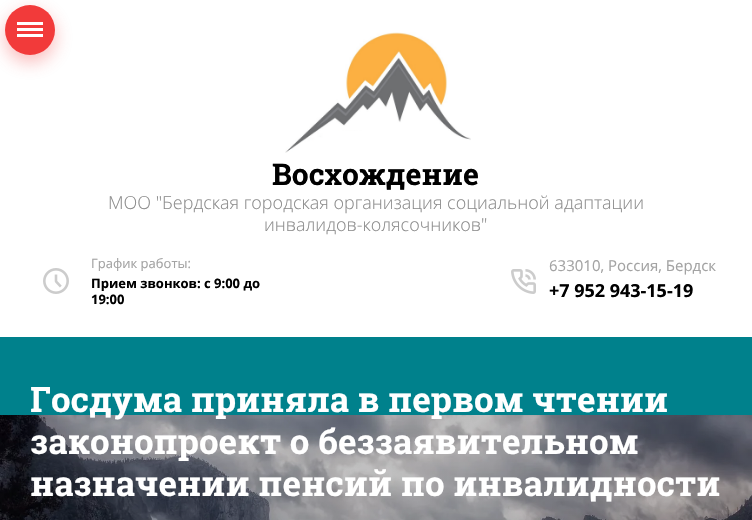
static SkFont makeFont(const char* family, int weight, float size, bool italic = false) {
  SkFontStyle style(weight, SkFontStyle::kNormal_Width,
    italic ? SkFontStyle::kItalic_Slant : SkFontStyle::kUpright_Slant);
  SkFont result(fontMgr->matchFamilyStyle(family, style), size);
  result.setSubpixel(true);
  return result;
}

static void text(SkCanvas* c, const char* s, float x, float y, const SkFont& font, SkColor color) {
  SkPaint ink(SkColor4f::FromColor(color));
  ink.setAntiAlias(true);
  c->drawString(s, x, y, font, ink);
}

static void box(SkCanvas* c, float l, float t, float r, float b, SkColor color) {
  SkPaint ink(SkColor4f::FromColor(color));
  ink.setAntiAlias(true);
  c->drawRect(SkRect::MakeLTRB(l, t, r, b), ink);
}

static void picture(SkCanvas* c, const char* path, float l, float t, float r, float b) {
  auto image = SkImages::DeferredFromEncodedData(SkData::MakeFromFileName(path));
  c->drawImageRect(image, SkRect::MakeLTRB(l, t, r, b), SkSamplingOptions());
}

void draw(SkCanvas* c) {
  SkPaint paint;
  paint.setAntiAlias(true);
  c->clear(0xff00a9b8);
  box(c, 0, 0, 752, 337, 0xffffffff);
  paint.setColor(0x59f23a3a);
  paint.setMaskFilter(SkMaskFilter::MakeBlur(kNormal_SkBlurStyle, 9));
  c->drawRoundRect(SkRect::MakeLTRB(5, 12, 55, 62), 25, 25, paint);
  paint.setMaskFilter(nullptr);
  paint.setColor(0xfff23a3a);
  c->drawCircle(30, 30, 25, paint);
  box(c, 17, 22, 43, 25, 0xffffffff);
  box(c, 17, 28, 43, 31, 0xffffffff);
  box(c, 17, 34, 43, 37, 0xffffffff);
  picture(c, "img_01.png", 285, 32, 471, 153);
  SkFont face1 = makeFont("Roboto Slab", 700, 30);
  text(c, "Восхождение", 272, 185, face1, 0xff000000);
  SkFont face2 = makeFont("Open Sans", 300, 18);
  text(c, "МОО \"Бердская городская организация социальной адаптации", 108, 209, face2, 0xff8c8c8c);
  text(c, "инвалидов-колясочников\"", 264, 231, face2, 0xff8c8c8c);
  picture(c, "img_02.png", 43, 268, 69, 294);
  SkFont face3 = makeFont("Open Sans", 400, 13);
  text(c, "График работы:", 91, 268, face3, 0xffa3a3a3);
  SkFont face4 = makeFont("Open Sans", 700, 13);
  text(c, "Прием звонков: с 9:00 до", 91, 288, face4, 0xff000000);
  text(c, "19:00", 91, 304, face4, 0xff000000);
  picture(c, "img_03.png", 511, 269, 536, 294);
  SkFont face5 = makeFont("Open Sans", 400, 15);
  text(c, "633010, Россия, Бердск", 549, 271, face5, 0xffa3a3a3);
  SkFont face6 = makeFont("Open Sans", 700, 18);
  text(c, "+7 952 943-15-19", 549, 297, face6, 0xff000000);
  picture(c, "img_04.png", 0, 337, 752, 520);
  SkFont face7 = makeFont("Roboto Slab", 700, 35);
  text(c, "Госдума приняла в первом чтении", 30, 412, face7, 0xffffffff);
  text(c, "законопроект о беззаявительном", 30, 454, face7, 0xffffffff);
  text(c, "назначении пенсий по инвалидности", 30, 496, face7, 0xffffffff);
}
